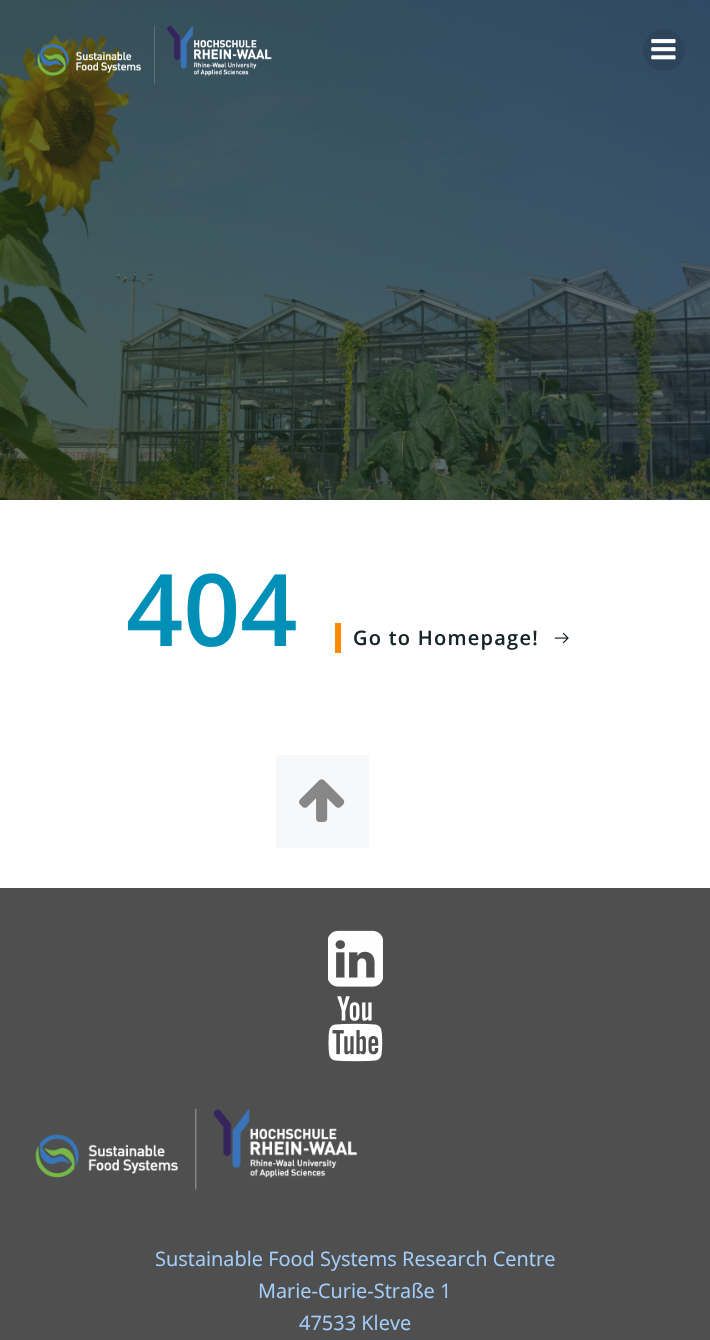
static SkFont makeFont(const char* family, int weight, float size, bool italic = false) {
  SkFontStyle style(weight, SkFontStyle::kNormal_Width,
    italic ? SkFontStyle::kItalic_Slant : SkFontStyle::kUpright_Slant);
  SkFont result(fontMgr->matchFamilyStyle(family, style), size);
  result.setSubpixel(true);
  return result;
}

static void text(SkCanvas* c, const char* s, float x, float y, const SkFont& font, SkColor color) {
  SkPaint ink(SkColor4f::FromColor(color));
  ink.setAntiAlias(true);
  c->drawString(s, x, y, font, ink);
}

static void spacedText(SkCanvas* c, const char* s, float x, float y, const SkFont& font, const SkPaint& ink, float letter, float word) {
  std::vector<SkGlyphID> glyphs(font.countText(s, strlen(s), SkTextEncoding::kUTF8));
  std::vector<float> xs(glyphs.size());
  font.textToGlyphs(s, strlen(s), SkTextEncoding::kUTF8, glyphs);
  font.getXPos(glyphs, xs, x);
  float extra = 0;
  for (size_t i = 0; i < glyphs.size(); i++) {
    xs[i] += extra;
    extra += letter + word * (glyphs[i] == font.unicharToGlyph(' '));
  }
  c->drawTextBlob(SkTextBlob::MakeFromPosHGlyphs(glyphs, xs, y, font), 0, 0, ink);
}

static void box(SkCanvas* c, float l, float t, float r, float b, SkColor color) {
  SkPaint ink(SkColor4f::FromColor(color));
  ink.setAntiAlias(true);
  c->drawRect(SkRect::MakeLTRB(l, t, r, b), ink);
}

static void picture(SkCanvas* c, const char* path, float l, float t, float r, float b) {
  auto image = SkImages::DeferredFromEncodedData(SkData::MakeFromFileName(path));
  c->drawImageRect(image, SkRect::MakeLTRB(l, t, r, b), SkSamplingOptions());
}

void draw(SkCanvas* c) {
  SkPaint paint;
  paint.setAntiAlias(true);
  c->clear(0xffffffff);
  picture(c, "img_01.png", 0, 0, 710, 500);
  picture(c, "img_02.png", 37, 25, 272, 85);
  paint.setColor(0xff2d445a);
  c->drawCircle(664, 50, 21, paint);
  picture(c, "img_03.png", 651, 39, 676, 60);
  SkFont face1 = makeFont("Open Sans", 600, 100);
  text(c, "404", 126, 646, face1, 0xff0090b7);
  box(c, 335, 623, 341, 653, 0xffff8900);
  SkFont face2 = makeFont("Open Sans", 600, 20);
  paint.setColor(0xff16252a);
  spacedText(c, "Go to Homepage!", 353, 645, face2, paint, 1.25f, 0);
  picture(c, "img_04.png", 554, 632, 569, 644);
  box(c, 276, 755, 369, 848, 0xfff6f8fa);
  picture(c, "img_05.png", 299, 779, 345, 822);
  box(c, 0, 888, 710, 1340, 0xff4f4f50);
  picture(c, "img_06.png", 328, 930, 383, 987);
  picture(c, "img_07.png", 328, 996, 383, 1062);
  picture(c, "img_08.png", 35, 1108, 358, 1190);
  SkFont face3 = makeFont("Open Sans", 400, 20);
  text(c, "Sustainable Food Systems Research Centre", 155, 1266, face3, 0xffa3cefa);
  text(c, "Marie-Curie-Straße 1", 258, 1298, face3, 0xffa3cefa);
  text(c, "47533 Kleve", 299, 1330, face3, 0xffa3cefa);
}
